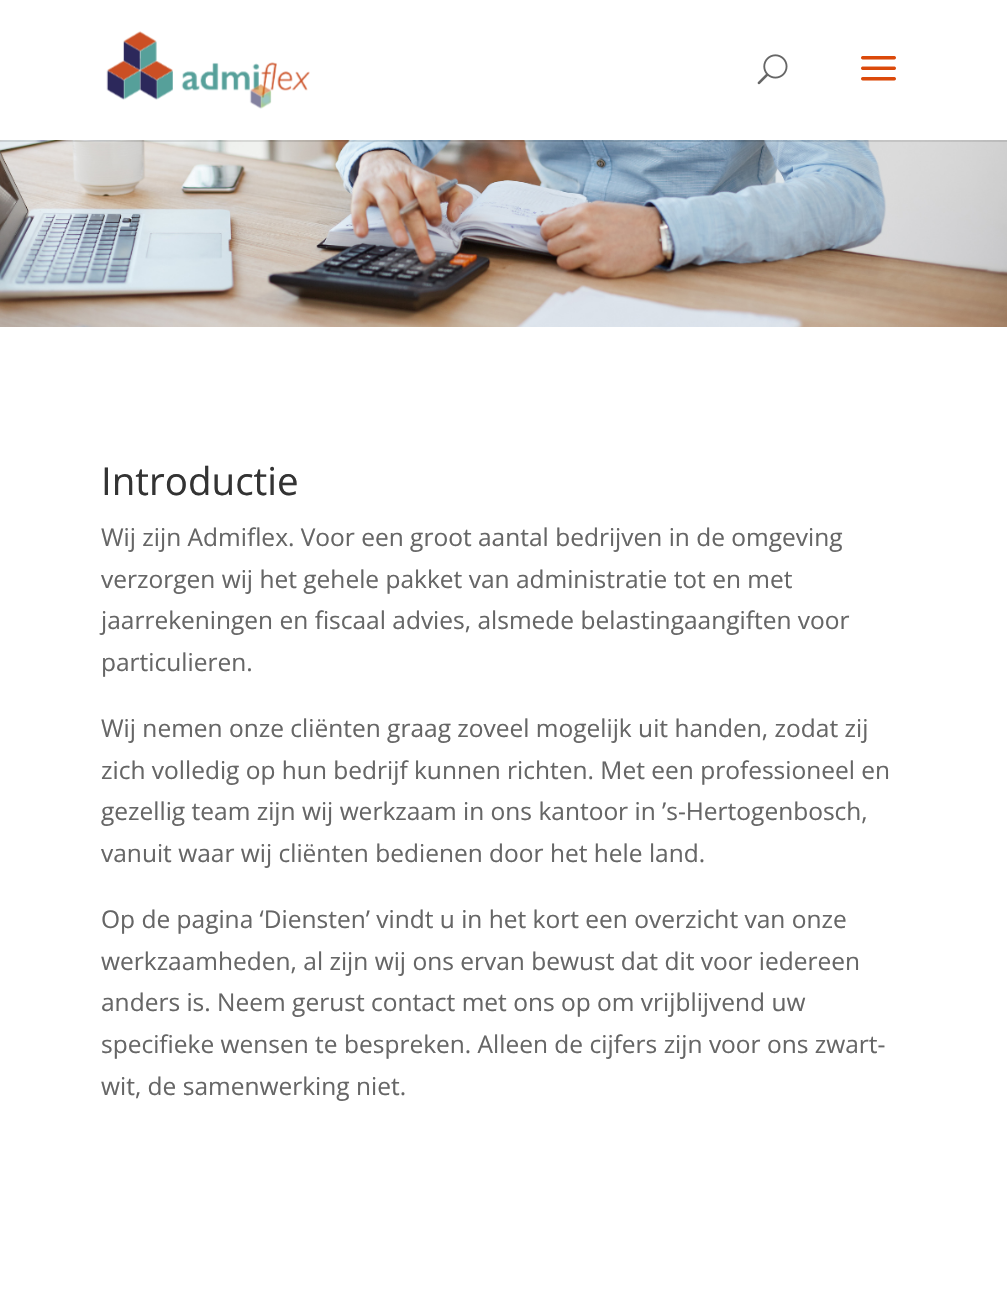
static SkFont makeFont(const char* family, int weight, float size, bool italic = false) {
  SkFontStyle style(weight, SkFontStyle::kNormal_Width,
    italic ? SkFontStyle::kItalic_Slant : SkFontStyle::kUpright_Slant);
  SkFont result(fontMgr->matchFamilyStyle(family, style), size);
  result.setSubpixel(true);
  return result;
}

static void text(SkCanvas* c, const char* s, float x, float y, const SkFont& font, SkColor color) {
  SkPaint ink(SkColor4f::FromColor(color));
  ink.setAntiAlias(true);
  c->drawString(s, x, y, font, ink);
}

static void box(SkCanvas* c, float l, float t, float r, float b, SkColor color) {
  SkPaint ink(SkColor4f::FromColor(color));
  ink.setAntiAlias(true);
  c->drawRect(SkRect::MakeLTRB(l, t, r, b), ink);
}

static void picture(SkCanvas* c, const char* path, float l, float t, float r, float b) {
  auto image = SkImages::DeferredFromEncodedData(SkData::MakeFromFileName(path));
  c->drawImageRect(image, SkRect::MakeLTRB(l, t, r, b), SkSamplingOptions());
}

void draw(SkCanvas* c) {
  SkPaint paint;
  paint.setAntiAlias(true);
  c->clear(0xffffffff);
  picture(c, "img_04.png", 0, 140, 1007, 327);
  box(c, 0, 140, 1007, 142, 0x1a000000);
  picture(c, "img_01.png", 106, 31, 310, 109);
  picture(c, "img_02.png", 757, 54, 788, 85);
  picture(c, "img_03.png", 861, 56, 896, 81);
  SkFont face1 = makeFont("Open Sans", 400, 38.5f);
  text(c, "Introductie", 101, 495, face1, 0xff333333);
  SkFont face2 = makeFont("Open Sans", 400, 24.5f);
  text(c, "Wij zijn Admiflex. Voor een groot aantal bedrijven in de omgeving", 101, 546, face2, 0xff666666);
  text(c, "verzorgen wij het gehele pakket van administratie tot en met", 101, 588, face2, 0xff666666);
  text(c, "jaarrekeningen en fiscaal advies, alsmede belastingaangiften voor", 101, 629, face2, 0xff666666);
  text(c, "particulieren.", 101, 671, face2, 0xff666666);
  text(c, "Wij nemen onze cliënten graag zoveel mogelijk uit handen, zodat zij", 101, 737, face2, 0xff666666);
  text(c, "zich volledig op hun bedrijf kunnen richten. Met een professioneel en", 101, 779, face2, 0xff666666);
  text(c, "gezellig team zijn wij werkzaam in ons kantoor in ’s-Hertogenbosch,", 101, 820, face2, 0xff666666);
  text(c, "vanuit waar wij cliënten bedienen door het hele land.", 101, 862, face2, 0xff666666);
  text(c, "Op de pagina ‘Diensten’ vindt u in het kort een overzicht van onze", 101, 928, face2, 0xff666666);
  text(c, "werkzaamheden, al zijn wij ons ervan bewust dat dit voor iedereen", 101, 970, face2, 0xff666666);
  text(c, "anders is. Neem gerust contact met ons op om vrijblijvend uw", 101, 1011, face2, 0xff666666);
  text(c, "specifieke wensen te bespreken. Alleen de cijfers zijn voor ons zwart-", 101, 1053, face2, 0xff666666);
  text(c, "wit, de samenwerking niet.", 101, 1095, face2, 0xff666666);
}
